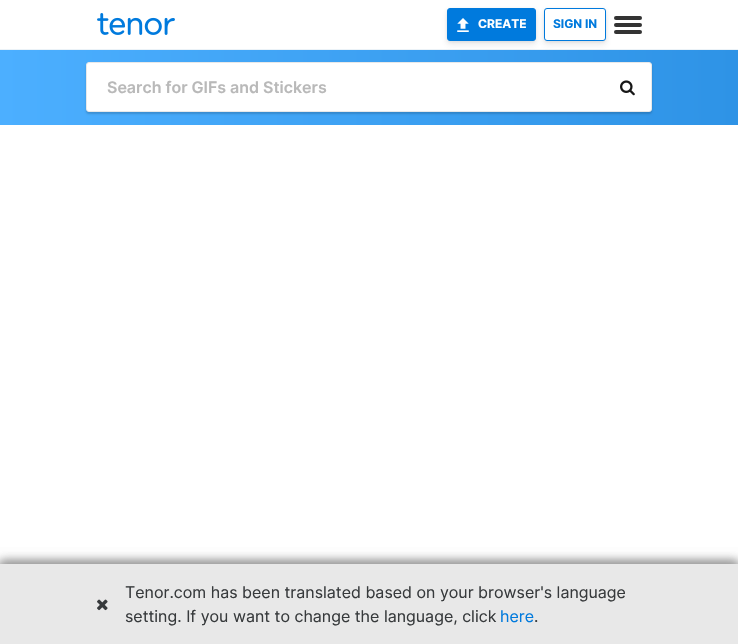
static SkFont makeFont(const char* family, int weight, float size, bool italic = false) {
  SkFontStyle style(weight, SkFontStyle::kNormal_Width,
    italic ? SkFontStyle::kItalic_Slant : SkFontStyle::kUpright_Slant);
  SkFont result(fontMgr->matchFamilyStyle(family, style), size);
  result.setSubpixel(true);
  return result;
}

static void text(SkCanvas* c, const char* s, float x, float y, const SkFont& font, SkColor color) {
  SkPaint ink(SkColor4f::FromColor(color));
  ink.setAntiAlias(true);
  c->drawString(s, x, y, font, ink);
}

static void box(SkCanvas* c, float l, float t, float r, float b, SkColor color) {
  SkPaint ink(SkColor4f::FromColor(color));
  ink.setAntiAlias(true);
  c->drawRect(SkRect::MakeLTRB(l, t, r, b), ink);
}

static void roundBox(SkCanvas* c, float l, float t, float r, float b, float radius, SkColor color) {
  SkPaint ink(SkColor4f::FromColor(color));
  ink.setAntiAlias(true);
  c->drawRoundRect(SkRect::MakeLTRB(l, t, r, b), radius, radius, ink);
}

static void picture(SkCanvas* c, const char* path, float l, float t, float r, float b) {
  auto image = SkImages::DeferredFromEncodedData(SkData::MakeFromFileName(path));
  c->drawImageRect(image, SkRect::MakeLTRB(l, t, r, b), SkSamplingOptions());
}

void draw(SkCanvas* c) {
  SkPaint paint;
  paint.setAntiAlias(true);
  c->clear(0xffffffff);
  box(c, 0, 49, 738, 50, 0xffebf2f7);
  picture(c, "img_01.png", 97, 13, 175, 35);
  paint.setColor(0x1c53535c);
  paint.setMaskFilter(SkMaskFilter::MakeBlur(kNormal_SkBlurStyle, 3));
  c->drawRoundRect(SkRect::MakeLTRB(447, 12, 536, 45), 3, 3, paint);
  paint.setMaskFilter(nullptr);
  paint.setColor(0x14000000);
  paint.setMaskFilter(SkMaskFilter::MakeBlur(kNormal_SkBlurStyle, 1.5f));
  c->drawRoundRect(SkRect::MakeLTRB(447, 9, 536, 42), 3, 3, paint);
  paint.setMaskFilter(nullptr);
  paint.setColor(0xff007add);
  c->drawRoundRect(SkRect::MakeLTRB(447.5f, 8.5f, 535.5f, 40.5f), 2.5f, 2.5f, paint);
  paint.setStyle(SkPaint::kStroke_Style);
  paint.setStrokeWidth(1);
  c->drawRoundRect(SkRect::MakeLTRB(447.5f, 8.5f, 535.5f, 40.5f), 2.5f, 2.5f, paint);
  picture(c, "img_02.png", 457, 18, 469, 32);
  SkFont face1 = makeFont("Inter", 700, 12);
  text(c, "CREATE", 478, 28, face1, 0xffffffff);
  paint.setStyle(SkPaint::kFill_Style);
  paint.setColor(0x1c53535c);
  paint.setMaskFilter(SkMaskFilter::MakeBlur(kNormal_SkBlurStyle, 3));
  c->drawRoundRect(SkRect::MakeLTRB(544, 12, 606, 45), 3, 3, paint);
  paint.setMaskFilter(nullptr);
  paint.setColor(0x14000000);
  paint.setMaskFilter(SkMaskFilter::MakeBlur(kNormal_SkBlurStyle, 1.5f));
  c->drawRoundRect(SkRect::MakeLTRB(544, 9, 606, 42), 3, 3, paint);
  paint.setMaskFilter(nullptr);
  paint.setColor(0xffffffff);
  c->drawRoundRect(SkRect::MakeLTRB(544.5f, 8.5f, 605.5f, 40.5f), 2.5f, 2.5f, paint);
  paint.setStyle(SkPaint::kStroke_Style);
  paint.setColor(0xff007add);
  c->drawRoundRect(SkRect::MakeLTRB(544.5f, 8.5f, 605.5f, 40.5f), 2.5f, 2.5f, paint);
  text(c, "SIGN IN", 553, 28, face1, 0xff007add);
  roundBox(c, 614, 23, 642, 27, 2, 0xff333333);
  roundBox(c, 614, 16, 642, 20, 2, 0xff333333);
  roundBox(c, 614, 30, 642, 34, 2, 0xff333333);
  paint.setStyle(SkPaint::kFill_Style);
  {
    const SkColor colors[] = {0xff4cafff, 0xff2e93e6};
    const float stops[] = {0, 1};
    const SkPoint ends[] = {{0, 88}, {738, 87}};
    paint.setShader(SkGradientShader::MakeLinear(ends, colors, stops, 2, SkTileMode::kClamp));
    paint.setAlpha(255);
  }
  c->drawRect(SkRect::MakeLTRB(0, 50, 738, 125), paint);
  paint.setShader(nullptr);
  paint.setColor(0x29000000);
  paint.setMaskFilter(SkMaskFilter::MakeBlur(kNormal_SkBlurStyle, 1));
  c->drawRoundRect(SkRect::MakeLTRB(86, 64, 652, 114), 3, 3, paint);
  paint.setMaskFilter(nullptr);
  paint.setColor(0xffffffff);
  c->drawRoundRect(SkRect::MakeLTRB(86.5f, 62.5f, 651.5f, 111.5f), 2.5f, 2.5f, paint);
  paint.setStyle(SkPaint::kStroke_Style);
  paint.setColor(0xffe8e8e8);
  c->drawRoundRect(SkRect::MakeLTRB(86.5f, 62.5f, 651.5f, 111.5f), 2.5f, 2.5f, paint);
  SkFont face2 = makeFont("Inter", 600, 16);
  text(c, "Search for GIFs and Stickers", 107, 93, face2, 0xffb9b9b9);
  picture(c, "img_03.png", 620, 80, 635, 96);
  paint.setStyle(SkPaint::kFill_Style);
  paint.setColor(0xff999999);
  paint.setMaskFilter(SkMaskFilter::MakeBlur(kNormal_SkBlurStyle, 5));
  c->drawRect(SkRect::MakeLTRB(0, 562, 738, 642), paint);
  paint.setMaskFilter(nullptr);
  paint.setMaskFilter(SkMaskFilter::MakeBlur(kNormal_SkBlurStyle, 5));
  c->drawRect(SkRect::MakeLTRB(0, 562, 738, 642), paint);
  paint.setMaskFilter(nullptr);
  box(c, 0, 564, 738, 644, 0xffe8e8e8);
  picture(c, "img_04.png", 97, 599, 108, 611);
  SkFont face3 = makeFont("Inter", 400, 16);
  text(c, "Tenor.com has been translated based on your browser's language", 125, 598, face3, 0xff373a3c);
  text(c, "setting. If you want to change the language, click", 125, 622, face3, 0xff373a3c);
  text(c, "here", 500, 622, face3, 0xff007add);
  text(c, ".", 534, 622, face3, 0xff373a3c);
}
